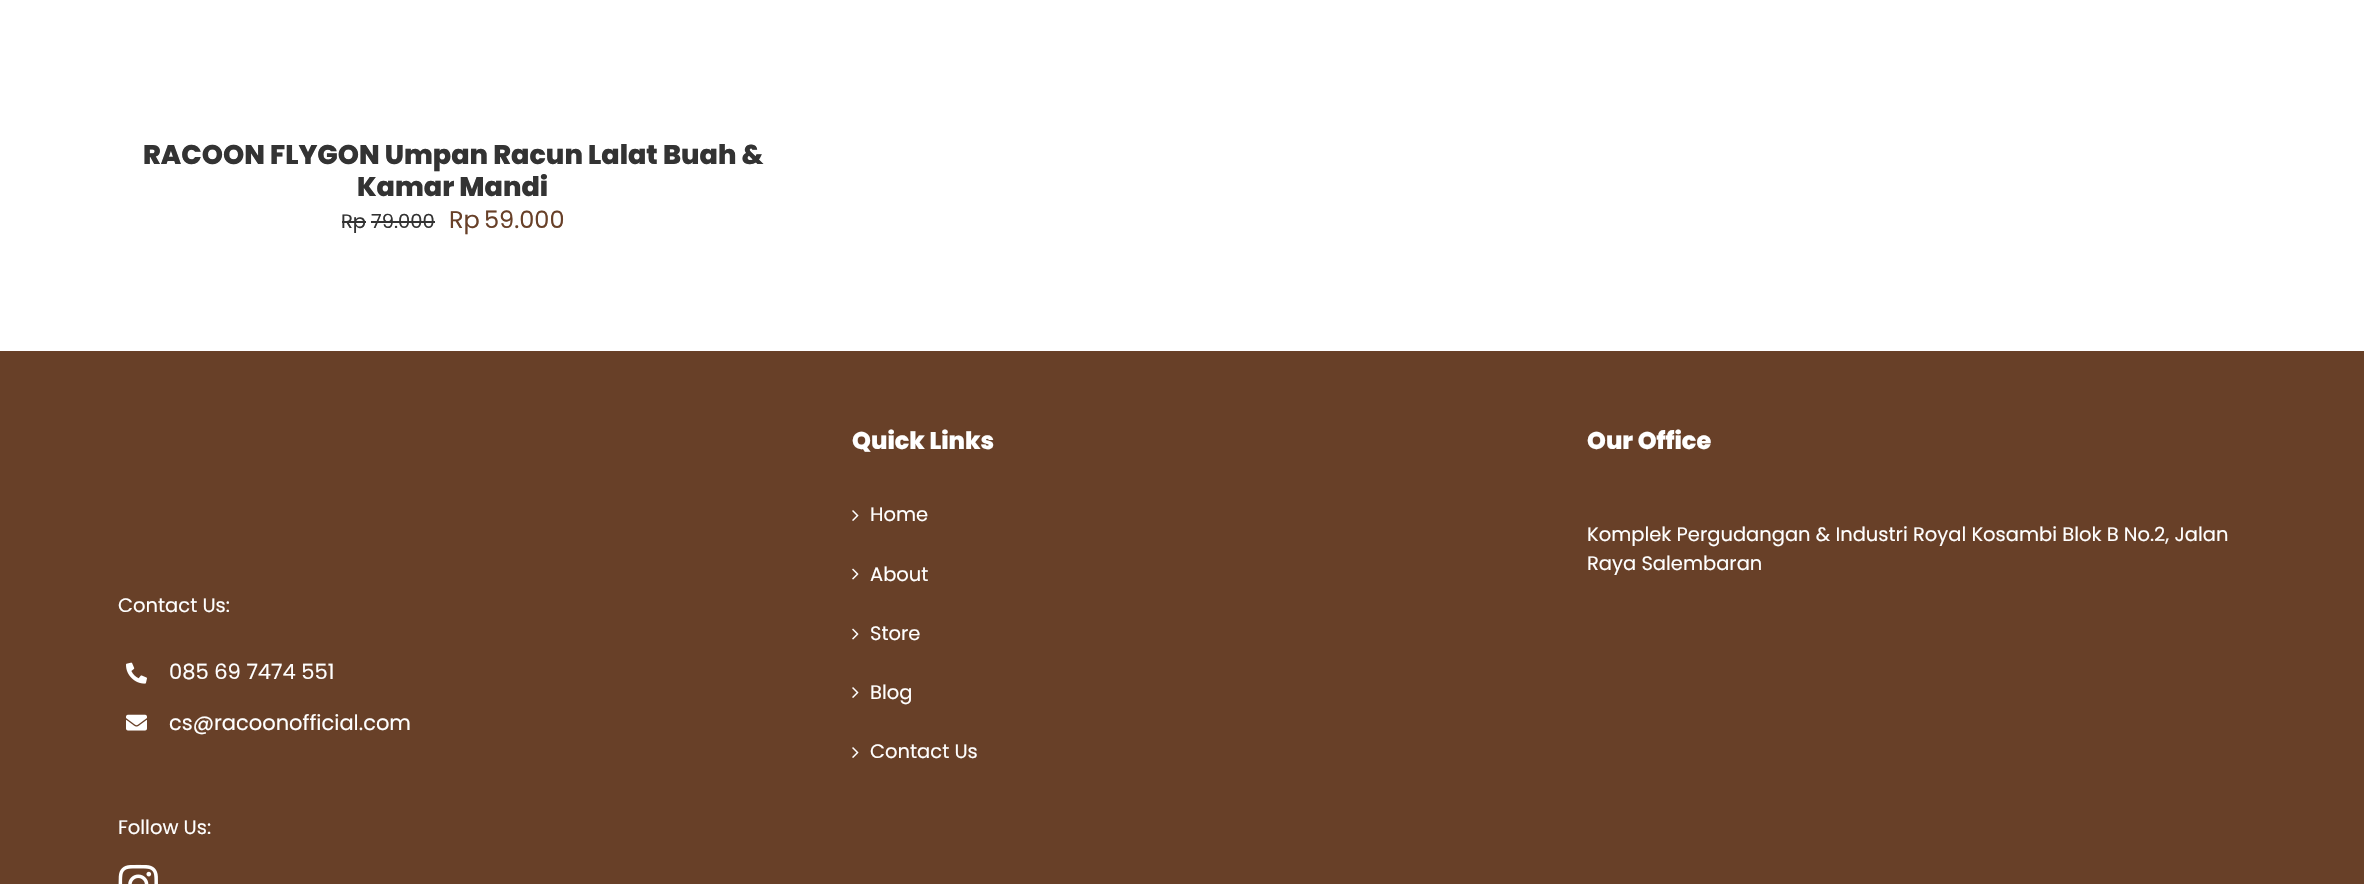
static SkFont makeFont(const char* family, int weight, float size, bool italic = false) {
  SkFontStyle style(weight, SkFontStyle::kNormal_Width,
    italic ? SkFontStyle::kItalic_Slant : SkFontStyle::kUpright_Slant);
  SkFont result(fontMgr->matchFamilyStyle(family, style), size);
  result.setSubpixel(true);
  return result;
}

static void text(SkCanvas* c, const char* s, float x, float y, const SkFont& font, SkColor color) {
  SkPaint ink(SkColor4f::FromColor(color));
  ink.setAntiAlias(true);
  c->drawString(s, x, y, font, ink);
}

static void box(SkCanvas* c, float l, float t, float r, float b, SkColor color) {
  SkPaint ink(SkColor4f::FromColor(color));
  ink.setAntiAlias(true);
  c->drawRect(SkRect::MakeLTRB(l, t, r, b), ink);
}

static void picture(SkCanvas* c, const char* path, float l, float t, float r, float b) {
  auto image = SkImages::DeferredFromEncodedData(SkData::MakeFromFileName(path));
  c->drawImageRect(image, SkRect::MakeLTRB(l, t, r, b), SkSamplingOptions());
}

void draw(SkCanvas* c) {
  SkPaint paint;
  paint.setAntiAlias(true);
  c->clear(0xffffffff);
  SkFont face1 = makeFont("Poppins", 800, 27);
  text(c, "RACOON FLYGON Umpan Racun Lalat Buah &", 143, 164, face1, 0xff333333);
  text(c, "Kamar Mandi", 357, 196, face1, 0xff333333);
  SkFont face2 = makeFont("Poppins", 400, 19.5f);
  text(c, "Rp", 341, 228, face2, 0xff333333);
  box(c, 342, 221, 366, 223, 0xff333333);
  text(c, "79.000", 371, 228, face2, 0xff333333);
  box(c, 371, 221, 435, 223, 0xff333333);
  SkFont face3 = makeFont("Poppins", 400, 24);
  text(c, "Rp", 449, 228, face3, 0xff684028);
  text(c, "59.000", 484, 228, face3, 0xff684028);
  box(c, 0, 351, 2364, 884, 0xff684028);
  SkFont face4 = makeFont("Poppins", 800, 24);
  text(c, "Quick Links", 852, 449, face4, 0xffffffff);
  picture(c, "img_01.png", 852, 510, 859, 521);
  text(c, "Home", 870, 521, face2, 0xffffffff);
  picture(c, "img_02.png", 852, 568, 859, 580);
  text(c, "About", 870, 581, face2, 0xffffffff);
  picture(c, "img_02.png", 852, 628, 859, 640);
  text(c, "Store", 870, 640, face2, 0xffffffff);
  picture(c, "img_01.png", 852, 687, 859, 698);
  text(c, "Blog", 870, 699, face2, 0xffffffff);
  picture(c, "img_01.png", 852, 747, 859, 758);
  text(c, "Contact Us", 870, 758, face2, 0xffffffff);
  text(c, "Our Office", 1587, 449, face4, 0xffffffff);
  text(c, "Komplek Pergudangan & Industri Royal Kosambi Blok B No.2, Jalan", 1587, 541, face2, 0xffffffff);
  text(c, "Raya Salembaran", 1587, 570, face2, 0xffffffff);
  text(c, "Contact Us:", 118, 612, face2, 0xffffffff);
  picture(c, "img_03.png", 126, 662, 147, 684);
  SkFont face5 = makeFont("Poppins", 400, 21);
  text(c, "085 69 7474 551", 169, 679, face5, 0xffffffff);
  picture(c, "img_04.png", 126, 714, 147, 731);
  text(c, "cs@racoonofficial.com", 169, 730, face5, 0xffffffff);
  text(c, "Follow Us:", 118, 834, face2, 0xffffffff);
  picture(c, "img_05.png", 118, 864, 158, 884);
}
